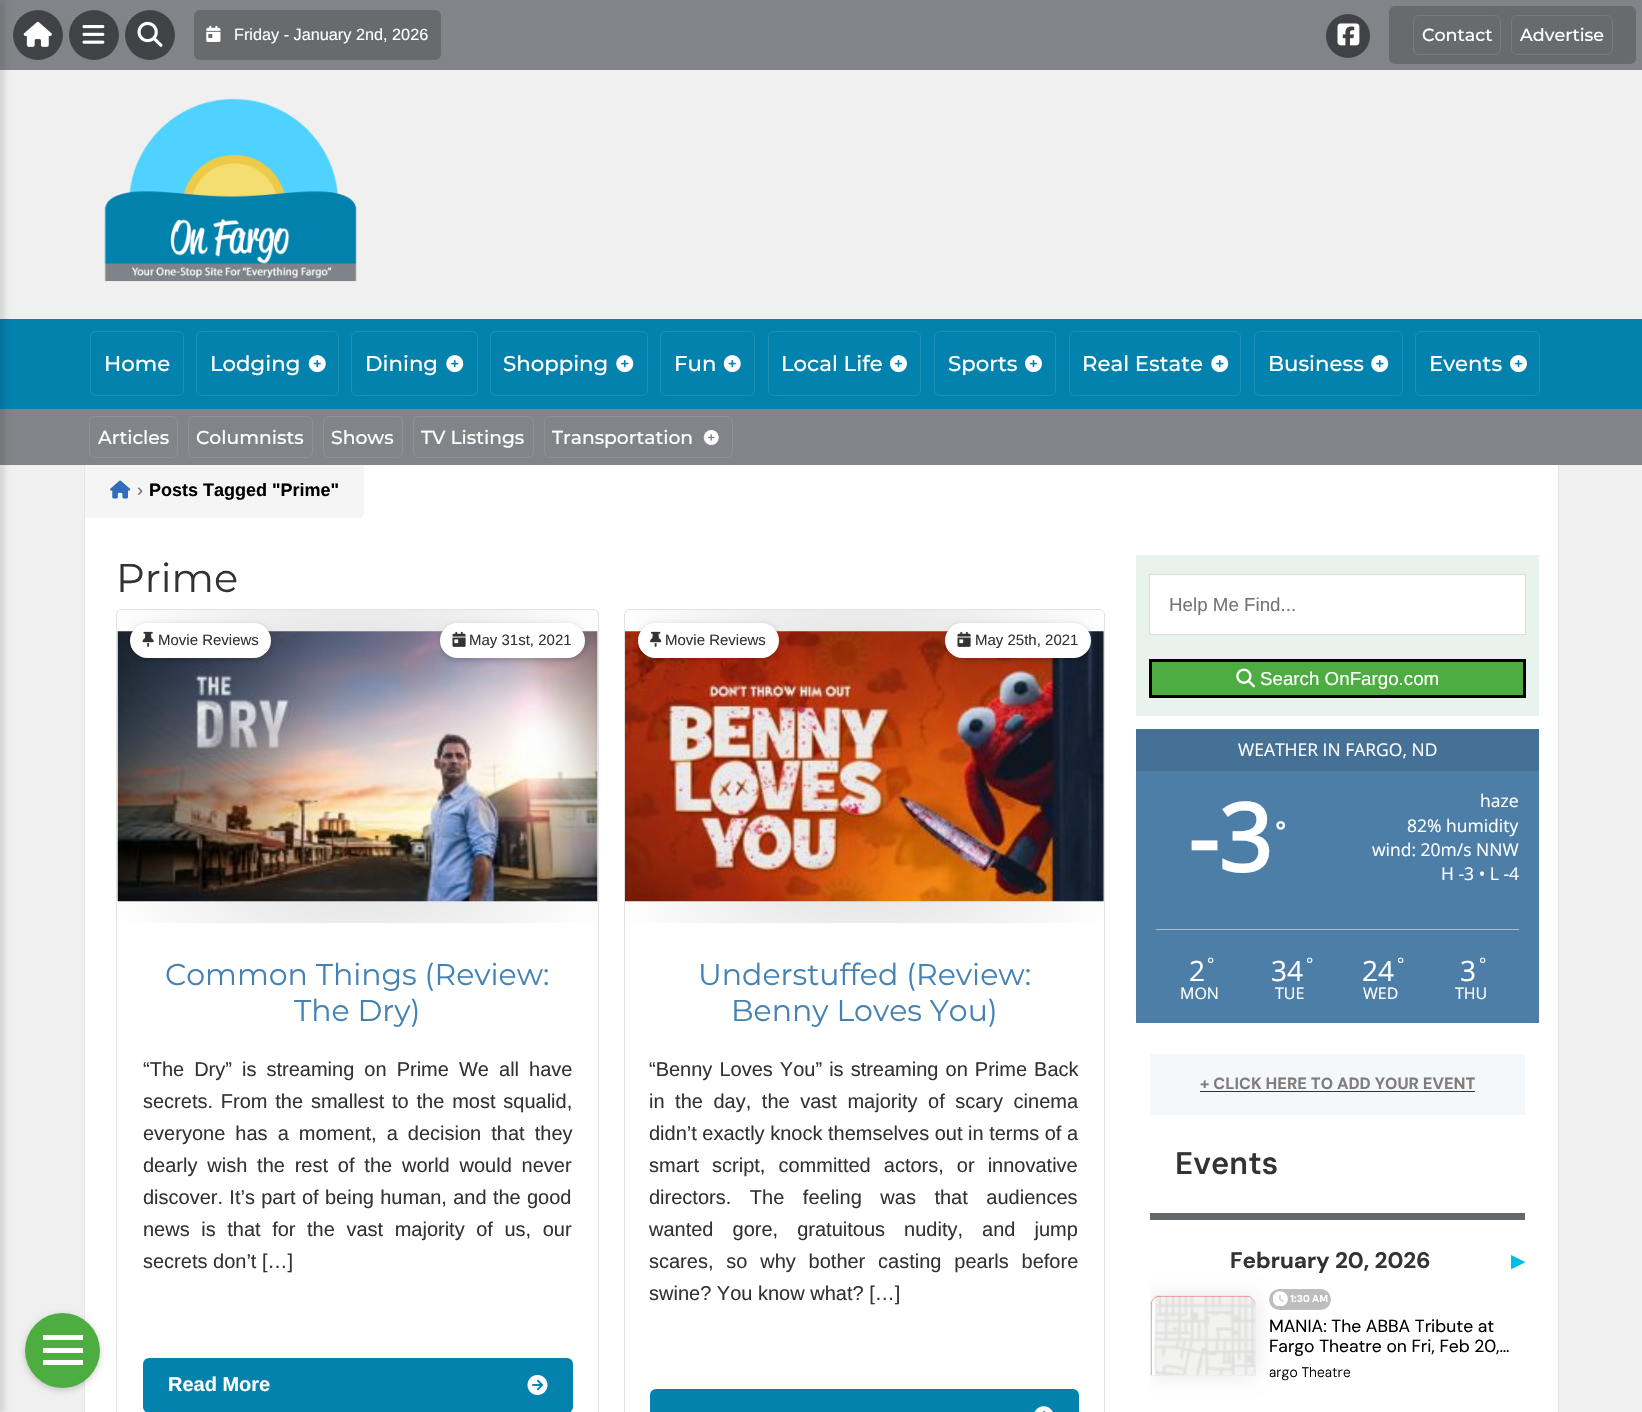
static SkFont makeFont(const char* family, int weight, float size, bool italic = false) {
  SkFontStyle style(weight, SkFontStyle::kNormal_Width,
    italic ? SkFontStyle::kItalic_Slant : SkFontStyle::kUpright_Slant);
  SkFont result(fontMgr->matchFamilyStyle(family, style), size);
  result.setSubpixel(true);
  return result;
}

static void text(SkCanvas* c, const char* s, float x, float y, const SkFont& font, SkColor color) {
  SkPaint ink(SkColor4f::FromColor(color));
  ink.setAntiAlias(true);
  c->drawString(s, x, y, font, ink);
}

static void spacedText(SkCanvas* c, const char* s, float x, float y, const SkFont& font, const SkPaint& ink, float letter, float word) {
  std::vector<SkGlyphID> glyphs(font.countText(s, strlen(s), SkTextEncoding::kUTF8));
  std::vector<float> xs(glyphs.size());
  font.textToGlyphs(s, strlen(s), SkTextEncoding::kUTF8, glyphs);
  font.getXPos(glyphs, xs, x);
  float extra = 0;
  for (size_t i = 0; i < glyphs.size(); i++) {
    xs[i] += extra;
    extra += letter + word * (glyphs[i] == font.unicharToGlyph(' '));
  }
  c->drawTextBlob(SkTextBlob::MakeFromPosHGlyphs(glyphs, xs, y, font), 0, 0, ink);
}

static void box(SkCanvas* c, float l, float t, float r, float b, SkColor color) {
  SkPaint ink(SkColor4f::FromColor(color));
  ink.setAntiAlias(true);
  c->drawRect(SkRect::MakeLTRB(l, t, r, b), ink);
}

static void roundBox(SkCanvas* c, float l, float t, float r, float b, float radius, SkColor color) {
  SkPaint ink(SkColor4f::FromColor(color));
  ink.setAntiAlias(true);
  c->drawRoundRect(SkRect::MakeLTRB(l, t, r, b), radius, radius, ink);
}

static void picture(SkCanvas* c, const char* path, float l, float t, float r, float b) {
  auto image = SkImages::DeferredFromEncodedData(SkData::MakeFromFileName(path));
  c->drawImageRect(image, SkRect::MakeLTRB(l, t, r, b), SkSamplingOptions());
}

void draw(SkCanvas* c) {
  SkPaint paint;
  paint.setAntiAlias(true);
  c->clear(0xfff0f0f0);
  box(c, 0, 0, 1642, 70, 0xff828489);
  paint.setColor(0xff414245);
  c->drawCircle(38, 35, 25, paint);
  box(c, 0, 319, 1642, 409, 0xff0382ad);
  box(c, 0, 409, 1642, 465, 0xff828489);
  paint.setColor(0x1a000000);
  paint.setMaskFilter(SkMaskFilter::MakeBlur(kNormal_SkBlurStyle, 2.5f));
  c->drawRect(SkRect::MakeLTRB(-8, 0, 5, 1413), paint);
  paint.setMaskFilter(nullptr);
  picture(c, "img_01.png", 23, 21, 52, 47);
  paint.setColor(0xff414245);
  c->drawCircle(94, 35, 25, paint);
  picture(c, "img_02.png", 82, 25, 105, 44);
  c->drawCircle(150, 35, 25, paint);
  picture(c, "img_03.png", 137, 21, 163, 47);
  roundBox(c, 194, 10, 441, 60, 6, 0xff686a6e);
  picture(c, "img_04.png", 206, 25, 221, 42);
  SkFont face1 = makeFont("Liberation Sans", 400, 16.25f);
  text(c, "Friday - January 2nd, 2026", 234, 40, face1, 0xffffffff);
  c->drawCircle(1348, 36, 22, paint);
  picture(c, "img_05.png", 1337, 23, 1360, 46);
  roundBox(c, 1389, 6, 1636, 64, 6, 0xff686a6e);
  paint.setStyle(SkPaint::kStroke_Style);
  paint.setStrokeWidth(1);
  paint.setColor(0xff77797d);
  c->drawRoundRect(SkRect::MakeLTRB(1413.5f, 15.5f, 1500.5f, 54.5f), 5.5f, 5.5f, paint);
  SkFont face2 = makeFont("Montserrat", 500, 17.5f);
  text(c, "Contact", 1422, 41, face2, 0xffffffff);
  c->drawRoundRect(SkRect::MakeLTRB(1511.5f, 15.5f, 1612.5f, 54.5f), 5.5f, 5.5f, paint);
  text(c, "Advertise", 1520, 41, face2, 0xffffffff);
  picture(c, "img_06.png", 104, 98, 357, 282);
  paint.setColor(0xff1c8fb5);
  c->drawRoundRect(SkRect::MakeLTRB(90.5f, 331.5f, 183.5f, 395.5f), 5.5f, 5.5f, paint);
  SkFont face3 = makeFont("Montserrat", 500, 21.25f);
  text(c, "Home", 104, 371, face3, 0xffffffff);
  c->drawRoundRect(SkRect::MakeLTRB(196.5f, 331.5f, 338.5f, 395.5f), 5.5f, 5.5f, paint);
  text(c, "Lodging", 210, 371, face3, 0xffffffff);
  picture(c, "img_07.png", 308, 355, 326, 373);
  c->drawRoundRect(SkRect::MakeLTRB(351.5f, 331.5f, 477.5f, 395.5f), 5.5f, 5.5f, paint);
  text(c, "Dining", 365, 371, face3, 0xffffffff);
  picture(c, "img_08.png", 446, 355, 464, 373);
  c->drawRoundRect(SkRect::MakeLTRB(490.5f, 331.5f, 647.5f, 395.5f), 5.5f, 5.5f, paint);
  text(c, "Shopping", 503, 371, face3, 0xffffffff);
  picture(c, "img_08.png", 616, 355, 634, 373);
  c->drawRoundRect(SkRect::MakeLTRB(660.5f, 331.5f, 754.5f, 395.5f), 5.5f, 5.5f, paint);
  text(c, "Fun", 674, 371, face3, 0xffffffff);
  picture(c, "img_07.png", 723, 355, 741, 373);
  c->drawRoundRect(SkRect::MakeLTRB(768.5f, 331.5f, 920.5f, 395.5f), 5.5f, 5.5f, paint);
  text(c, "Local Life", 781, 371, face3, 0xffffffff);
  picture(c, "img_09.png", 890, 355, 907, 373);
  c->drawRoundRect(SkRect::MakeLTRB(934.5f, 331.5f, 1055.5f, 395.5f), 5.5f, 5.5f, paint);
  text(c, "Sports", 948, 371, face3, 0xffffffff);
  picture(c, "img_09.png", 1025, 355, 1042, 373);
  c->drawRoundRect(SkRect::MakeLTRB(1069.5f, 331.5f, 1240.5f, 395.5f), 5.5f, 5.5f, paint);
  text(c, "Real Estate", 1082, 371, face3, 0xffffffff);
  picture(c, "img_08.png", 1211, 355, 1229, 373);
  c->drawRoundRect(SkRect::MakeLTRB(1254.5f, 331.5f, 1402.5f, 395.5f), 5.5f, 5.5f, paint);
  text(c, "Business", 1268, 371, face3, 0xffffffff);
  picture(c, "img_08.png", 1371, 355, 1389, 373);
  c->drawRoundRect(SkRect::MakeLTRB(1415.5f, 331.5f, 1539.5f, 395.5f), 5.5f, 5.5f, paint);
  text(c, "Events", 1429, 371, face3, 0xffffffff);
  picture(c, "img_09.png", 1510, 355, 1527, 373);
  paint.setColor(0xff8f9095);
  c->drawRoundRect(SkRect::MakeLTRB(89.5f, 416.5f, 177.5f, 457.5f), 5.5f, 5.5f, paint);
  SkFont face4 = makeFont("Montserrat", 500, 18.75f);
  text(c, "Articles", 98, 444, face4, 0xffffffff);
  c->drawRoundRect(SkRect::MakeLTRB(188.5f, 416.5f, 312.5f, 457.5f), 5.5f, 5.5f, paint);
  text(c, "Columnists", 196, 444, face4, 0xffffffff);
  c->drawRoundRect(SkRect::MakeLTRB(323.5f, 416.5f, 402.5f, 457.5f), 5.5f, 5.5f, paint);
  text(c, "Shows", 331, 444, face4, 0xffffffff);
  c->drawRoundRect(SkRect::MakeLTRB(413.5f, 416.5f, 533.5f, 457.5f), 5.5f, 5.5f, paint);
  text(c, "TV Listings", 421, 444, face4, 0xffffffff);
  c->drawRoundRect(SkRect::MakeLTRB(544.5f, 416.5f, 732.5f, 457.5f), 5.5f, 5.5f, paint);
  text(c, "Transportation", 552, 444, face4, 0xffffffff);
  picture(c, "img_10.png", 703, 430, 719, 445);
  box(c, 85, 465, 1558, 1412, 0xffffffff);
  box(c, 84, 465, 85, 1412, 0xffe6e6e6);
  paint.setStyle(SkPaint::kFill_Style);
  paint.setColor(0x33000000);
  paint.setMaskFilter(SkMaskFilter::MakeBlur(kNormal_SkBlurStyle, 3));
  c->drawRoundRect(SkRect::MakeLTRB(25, 1315, 100, 1390), 37.5f, 37.5f, paint);
  paint.setMaskFilter(nullptr);
  paint.setColor(0xff4dad41);
  c->drawCircle(62.5f, 1350.5f, 37.5f, paint);
  box(c, 43, 1335, 83, 1340, 0xffffffff);
  box(c, 43, 1348, 83, 1353, 0xffffffff);
  box(c, 43, 1360, 83, 1365, 0xffffffff);
  box(c, 1558, 465, 1559, 1412, 0xffe6e6e6);
  paint.setColor(0xfff5f5f5);
  c->drawPath(SkPathBuilder().moveTo(85, 465).lineTo(364, 465).lineTo(364, 512).cubicTo(364, 515.5f, 361.5f, 518, 358, 518).lineTo(85, 518).close().detach(), paint);
  picture(c, "img_11.png", 110, 480, 131, 499);
  SkFont face5 = makeFont("Liberation Sans", 400, 18);
  text(c, "›", 137, 496, face5, 0xff666666);
  SkFont face6 = makeFont("Liberation Sans", 700, 18);
  text(c, "Posts Tagged \"Prime\"", 149, 496, face6, 0xff000000);
  SkFont face7 = makeFont("Montserrat", 400, 40);
  text(c, "Prime", 116, 592, face7, 0xff333333);
  paint.setStyle(SkPaint::kStroke_Style);
  paint.setColor(0xffe1e1e1);
  c->drawRoundRect(SkRect::MakeLTRB(116.5f, 609.5f, 598.5f, 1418.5f), 5.5f, 5.5f, paint);
  paint.setStyle(SkPaint::kFill_Style);
  {
    const SkColor colors[] = {0xffd3d3d3, 0x00d3d3d3};
    const float stops[] = {0, 1};
    paint.setShader(SkGradientShader::MakeRadial({358, 766}, 286, colors, stops, 2, SkTileMode::kClamp));
    paint.setAlpha(255);
  }
  c->drawRect(SkRect::MakeLTRB(118, 610, 598, 923), paint);
  picture(c, "img_12.png", 117, 631, 598, 902);
  paint.setShader(nullptr);
  paint.setColor(0x33000000);
  paint.setMaskFilter(SkMaskFilter::MakeBlur(kNormal_SkBlurStyle, 3));
  c->drawRoundRect(SkRect::MakeLTRB(130, 625, 271, 660), 17.5f, 17.5f, paint);
  paint.setMaskFilter(nullptr);
  roundBox(c, 130, 623, 271, 658, 17.5f, 0xffffffff);
  picture(c, "img_13.png", 142, 631, 154, 647);
  SkFont face8 = makeFont("Liberation Sans", 400, 15);
  text(c, "Movie Reviews", 158, 645, face8, 0xff333333);
  paint.setMaskFilter(SkMaskFilter::MakeBlur(kNormal_SkBlurStyle, 3));
  c->drawRoundRect(SkRect::MakeLTRB(440, 625, 585, 660), 17.5f, 17.5f, paint);
  paint.setMaskFilter(nullptr);
  roundBox(c, 440, 623, 585, 658, 17.5f, 0xffffffff);
  picture(c, "img_14.png", 452, 631, 466, 647);
  text(c, "May 31st, 2021", 469, 645, face8, 0xff333333);
  SkFont face9 = makeFont("Montserrat", 400, 30);
  text(c, "Common Things (Review:", 165, 985, face9, 0xff4582b4);
  text(c, "The Dry)", 294, 1021, face9, 0xff4582b4);
  SkFont face10 = makeFont("Liberation Sans", 400, 20);
  paint.setColor(0xff333333);
  spacedText(c, "“The Dry” is streaming on Prime We all have", 143, 1076, face10, paint, 0, 4.5f);
  spacedText(c, "secrets. From the smallest to the most squalid,", 143, 1108, face10, paint, 0, 2.25f);
  spacedText(c, "everyone has a moment, a decision that they", 143, 1140, face10, paint, 0, 4.5f);
  spacedText(c, "dearly wish the rest of the world would never", 143, 1172, face10, paint, 0, 4.25f);
  spacedText(c, "discover. It’s part of being human, and the good", 143, 1204, face10, paint, 0, 0.75f);
  spacedText(c, "news is that for the vast majority of us, our", 143, 1236, face10, paint, 0, 6);
  text(c, "secrets don’t […]", 143, 1268, face10, 0xff333333);
  roundBox(c, 143, 1358, 573, 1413, 6, 0xff0382ad);
  SkFont face11 = makeFont("Liberation Sans", 700, 20);
  text(c, "Read More", 168, 1391, face11, 0xffffffff);
  picture(c, "img_15.png", 527, 1375, 548, 1395);
  paint.setStyle(SkPaint::kStroke_Style);
  paint.setColor(0xffe1e1e1);
  c->drawRoundRect(SkRect::MakeLTRB(624.5f, 609.5f, 1104.5f, 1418.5f), 5.5f, 5.5f, paint);
  paint.setStyle(SkPaint::kFill_Style);
  {
    const SkColor colors[] = {0xffd3d3d3, 0x00d3d3d3};
    const float stops[] = {0, 1};
    paint.setShader(SkGradientShader::MakeRadial({864, 766}, 286, colors, stops, 2, SkTileMode::kClamp));
    paint.setAlpha(255);
  }
  c->drawRect(SkRect::MakeLTRB(625, 610, 1104, 923), paint);
  picture(c, "img_16.png", 625, 631, 1104, 902);
  paint.setShader(nullptr);
  paint.setColor(0x33000000);
  paint.setMaskFilter(SkMaskFilter::MakeBlur(kNormal_SkBlurStyle, 3));
  c->drawRoundRect(SkRect::MakeLTRB(638, 625, 779, 660), 17.5f, 17.5f, paint);
  paint.setMaskFilter(nullptr);
  roundBox(c, 638, 623, 779, 658, 17.5f, 0xffffffff);
  picture(c, "img_17.png", 650, 631, 662, 647);
  text(c, "Movie Reviews", 665, 645, face8, 0xff333333);
  paint.setMaskFilter(SkMaskFilter::MakeBlur(kNormal_SkBlurStyle, 3));
  c->drawRoundRect(SkRect::MakeLTRB(945, 625, 1091, 660), 17.5f, 17.5f, paint);
  paint.setMaskFilter(nullptr);
  roundBox(c, 945, 623, 1091, 658, 17.5f, 0xffffffff);
  picture(c, "img_14.png", 957, 631, 971, 647);
  text(c, "May 25th, 2021", 975, 645, face8, 0xff333333);
  text(c, "Understuffed (Review:", 698, 985, face9, 0xff4582b4);
  text(c, "Benny Loves You)", 731, 1021, face9, 0xff4582b4);
  paint.setColor(0xff333333);
  spacedText(c, "“Benny Loves You” is streaming on Prime Back", 649, 1076, face10, paint, 0, 1.5f);
  spacedText(c, "in the day, the vast majority of scary cinema", 649, 1108, face10, paint, 0, 5);
  text(c, "didn’t exactly knock themselves out in terms of a", 649, 1140, face10, 0xff333333);
  spacedText(c, "smart script, committed actors, or innovative", 649, 1172, face10, paint, 0, 7.5f);
  spacedText(c, "directors. The feeling was that audiences", 649, 1204, face10, paint, 0, 13);
  spacedText(c, "wanted gore, gratuitous nudity, and jump", 649, 1236, face10, paint, 0, 13.5f);
  spacedText(c, "scares, so why bother casting pearls before", 649, 1268, face10, paint, 0, 7.25f);
  text(c, "swine? You know what? […]", 649, 1300, face10, 0xff333333);
  roundBox(c, 650, 1389, 1079, 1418, 6, 0xff0382ad);
  picture(c, "img_18.png", 1034, 1406, 1053, 1412);
  box(c, 1136, 555, 1539, 716, 0xffe8f3ee);
  paint.setColor(0xffffffff);
  c->drawRect(SkRect::MakeLTRB(1149.5f, 574.5f, 1525.5f, 634.5f), paint);
  paint.setStyle(SkPaint::kStroke_Style);
  paint.setColor(0xffdddddd);
  c->drawRect(SkRect::MakeLTRB(1149.5f, 574.5f, 1525.5f, 634.5f), paint);
  SkFont face12 = makeFont("Liberation Sans", 400, 18.75f);
  text(c, "Help Me Find...", 1169, 611, face12, 0xff757575);
  paint.setStyle(SkPaint::kFill_Style);
  paint.setColor(0xff4ead42);
  c->drawRect(SkRect::MakeLTRB(1150.5f, 660.5f, 1524.5f, 696.5f), paint);
  paint.setStyle(SkPaint::kStroke_Style);
  paint.setStrokeWidth(3);
  paint.setColor(0xff000000);
  c->drawRect(SkRect::MakeLTRB(1150.5f, 660.5f, 1524.5f, 696.5f), paint);
  picture(c, "img_19.png", 1236, 668, 1255, 688);
  text(c, "Search OnFargo.com", 1260, 685, face12, 0xffffffff);
  box(c, 1136, 771, 1539, 1023, 0xff4d7ea8);
  box(c, 1136, 729, 1539, 771, 0xff457197);
  SkFont face13 = makeFont("Open Sans", 400, 17.5f);
  text(c, "WEATHER IN FARGO, ND", 1238, 756, face13, 0xffffffff);
  SkFont face14 = makeFont("Open Sans", 700, 94);
  text(c, "-3", 1188, 872, face14, 0xffffffff);
  SkFont face15 = makeFont("Open Sans", 700, 25);
  text(c, "°", 1275, 840, face15, 0xffffffff);
  text(c, "haze", 1480, 807, face13, 0xffffffff);
  text(c, "82% humidity", 1407, 832, face13, 0xffffffff);
  text(c, "wind: 20m/s NNW", 1372, 856, face13, 0xffffffff);
  text(c, "H -3 • L -4", 1441, 880, face13, 0xffffffff);
  box(c, 1156, 929, 1519, 930, 0xffa6bfd4);
  SkFont face16 = makeFont("Open Sans", 400, 28);
  text(c, "2", 1189, 981, face16, 0xffffffff);
  SkFont face17 = makeFont("Open Sans", 400, 17);
  text(c, "°", 1207, 970, face17, 0xffffffff);
  SkFont face18 = makeFont("Open Sans", 400, 16);
  text(c, "MON", 1180, 999, face18, 0xffffffff);
  text(c, "34", 1271, 981, face16, 0xffffffff);
  text(c, "°", 1306, 970, face17, 0xffffffff);
  text(c, "TUE", 1275, 999, face18, 0xffffffff);
  text(c, "24", 1362, 981, face16, 0xffffffff);
  text(c, "°", 1397, 970, face17, 0xffffffff);
  text(c, "WED", 1363, 999, face18, 0xffffffff);
  text(c, "3", 1460, 981, face16, 0xffffffff);
  text(c, "°", 1479, 970, face17, 0xffffffff);
  text(c, "THU", 1455, 999, face18, 0xffffffff);
  box(c, 1150, 1054, 1525, 1115, 0xfff4f8fb);
  SkFont face19 = makeFont("DM Sans", 700, 16.25f);
  text(c, "+ CLICK HERE TO ADD YOUR EVENT", 1200, 1089, face19, 0xff817c7c);
  box(c, 1200, 1091, 1475, 1092, 0xff333333);
  box(c, 1150, 1213, 1525, 1220, 0xff64686a);
  SkFont face20 = makeFont("DM Sans", 600, 31);
  text(c, "Events", 1175, 1174, face20, 0xff333333);
  SkFont face21 = makeFont("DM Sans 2", 700, 22.5f);
  text(c, "February 20, 2026", 1230, 1268, face21, 0xff333333);
  SkFont face22 = makeFont("DejaVu Sans", 400, 18.75f);
  text(c, "▶", 1511, 1267, face22, 0xff00bce9);
  roundBox(c, 1269, 1289, 1331, 1310, 10.5f, 0xffbdbdbd);
  picture(c, "img_21.png", 1273, 1291, 1288, 1306);
  c->save();
  c->clipRect(SkRect::MakeLTRB(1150, 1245, 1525, 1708));
  paint.setStyle(SkPaint::kFill_Style);
  paint.setColor(0xffe8e8e8);
  paint.setMaskFilter(SkMaskFilter::MakeBlur(kNormal_SkBlurStyle, 9.5f));
  c->drawRoundRect(SkRect::MakeLTRB(1150, 1295, 1256, 1376), 10, 10, paint);
  paint.setMaskFilter(nullptr);
  c->restore();
  paint.setColor(0xffe54653);
  c->drawPath(SkPathBuilder().moveTo(1160, 1295.5f).lineTo(1246, 1295.5f).cubicTo(1251, 1295.5f, 1255.5f, 1300, 1255.5f, 1305).lineTo(1255.5f, 1375.5f).lineTo(1150.5f, 1375.5f).lineTo(1150.5f, 1305).cubicTo(1150.5f, 1300, 1155, 1295.5f, 1160, 1295.5f).close().detach(), paint);
  paint.setStyle(SkPaint::kStroke_Style);
  paint.setStrokeWidth(1);
  paint.setColor(0xffededed);
  c->drawPath(SkPathBuilder().moveTo(1160, 1295.5f).lineTo(1246, 1295.5f).cubicTo(1251, 1295.5f, 1255.5f, 1300, 1255.5f, 1305).lineTo(1255.5f, 1375.5f).lineTo(1150.5f, 1375.5f).lineTo(1150.5f, 1305).cubicTo(1150.5f, 1300, 1155, 1295.5f, 1160, 1295.5f).close().detach(), paint);
  picture(c, "img_20.png", 1151, 1296, 1255, 1375);
  SkFont face23 = makeFont("DM Sans", 700, 10);
  text(c, "1:30 AM", 1290, 1302, face23, 0xffffffff);
  SkFont face24 = makeFont("DM Sans", 400, 17.5f);
  text(c, "MANIA: The ABBA Tribute at", 1269, 1332, face24, 0xff000000);
  text(c, "Fargo Theatre on Fri, Feb 20,…", 1269, 1352, face24, 0xff000000);
  SkFont face25 = makeFont("DM Sans", 300, 13.75f);
  text(c, "argo Theatre", 1269, 1377, face25, 0xff000000);
}
